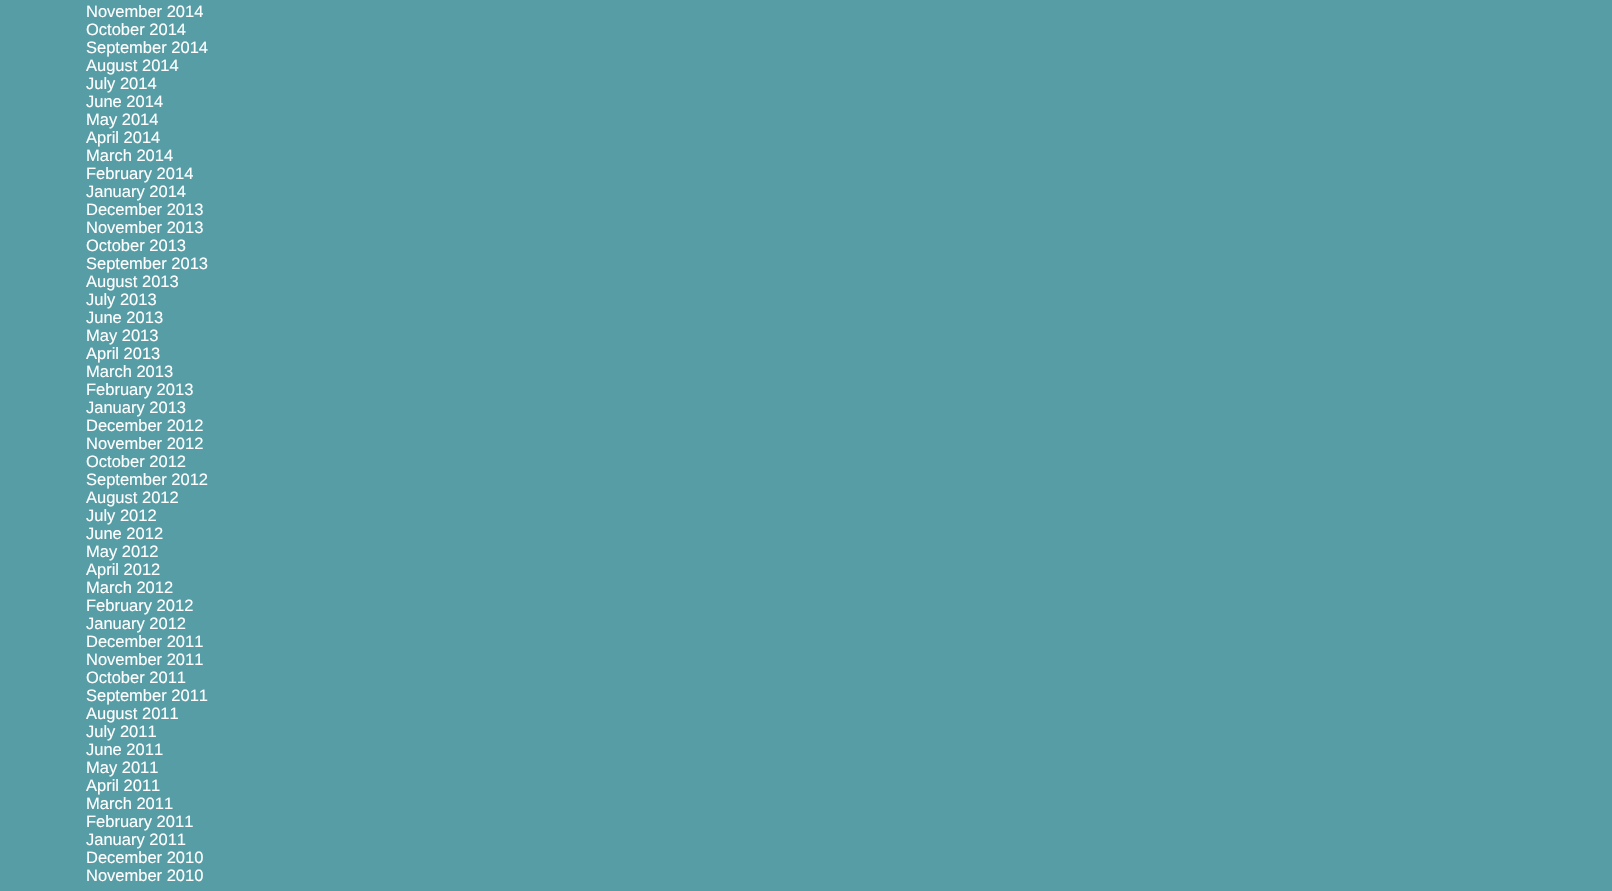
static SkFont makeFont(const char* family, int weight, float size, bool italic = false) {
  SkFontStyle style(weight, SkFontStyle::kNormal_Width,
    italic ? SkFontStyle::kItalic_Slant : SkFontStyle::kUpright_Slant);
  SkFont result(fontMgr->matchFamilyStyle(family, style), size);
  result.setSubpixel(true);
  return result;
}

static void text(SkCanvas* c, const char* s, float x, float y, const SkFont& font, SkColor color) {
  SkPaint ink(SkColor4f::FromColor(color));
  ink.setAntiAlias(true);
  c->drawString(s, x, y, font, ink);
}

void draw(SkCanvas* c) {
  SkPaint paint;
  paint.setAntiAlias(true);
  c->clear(0xff579da6);
  SkFont face1 = makeFont("Liberation Sans", 400, 16.5f);
  text(c, "November 2014", 86, 17, face1, 0xffffffff);
  text(c, "October 2014", 86, 35, face1, 0xffffffff);
  text(c, "September 2014", 86, 53, face1, 0xffffffff);
  text(c, "August 2014", 86, 71, face1, 0xffffffff);
  text(c, "July 2014", 86, 89, face1, 0xffffffff);
  text(c, "June 2014", 86, 107, face1, 0xffffffff);
  text(c, "May 2014", 86, 125, face1, 0xffffffff);
  text(c, "April 2014", 86, 143, face1, 0xffffffff);
  text(c, "March 2014", 86, 161, face1, 0xffffffff);
  text(c, "February 2014", 86, 179, face1, 0xffffffff);
  text(c, "January 2014", 86, 197, face1, 0xffffffff);
  text(c, "December 2013", 86, 215, face1, 0xffffffff);
  text(c, "November 2013", 86, 233, face1, 0xffffffff);
  text(c, "October 2013", 86, 251, face1, 0xffffffff);
  text(c, "September 2013", 86, 269, face1, 0xffffffff);
  text(c, "August 2013", 86, 287, face1, 0xffffffff);
  text(c, "July 2013", 86, 305, face1, 0xffffffff);
  text(c, "June 2013", 86, 323, face1, 0xffffffff);
  text(c, "May 2013", 86, 341, face1, 0xffffffff);
  text(c, "April 2013", 86, 359, face1, 0xffffffff);
  text(c, "March 2013", 86, 377, face1, 0xffffffff);
  text(c, "February 2013", 86, 395, face1, 0xffffffff);
  text(c, "January 2013", 86, 413, face1, 0xffffffff);
  text(c, "December 2012", 86, 431, face1, 0xffffffff);
  text(c, "November 2012", 86, 449, face1, 0xffffffff);
  text(c, "October 2012", 86, 467, face1, 0xffffffff);
  text(c, "September 2012", 86, 485, face1, 0xffffffff);
  text(c, "August 2012", 86, 503, face1, 0xffffffff);
  text(c, "July 2012", 86, 521, face1, 0xffffffff);
  text(c, "June 2012", 86, 539, face1, 0xffffffff);
  text(c, "May 2012", 86, 557, face1, 0xffffffff);
  text(c, "April 2012", 86, 575, face1, 0xffffffff);
  text(c, "March 2012", 86, 593, face1, 0xffffffff);
  text(c, "February 2012", 86, 611, face1, 0xffffffff);
  text(c, "January 2012", 86, 629, face1, 0xffffffff);
  text(c, "December 2011", 86, 647, face1, 0xffffffff);
  text(c, "November 2011", 86, 665, face1, 0xffffffff);
  text(c, "October 2011", 86, 683, face1, 0xffffffff);
  text(c, "September 2011", 86, 701, face1, 0xffffffff);
  text(c, "August 2011", 86, 719, face1, 0xffffffff);
  text(c, "July 2011", 86, 737, face1, 0xffffffff);
  text(c, "June 2011", 86, 755, face1, 0xffffffff);
  text(c, "May 2011", 86, 773, face1, 0xffffffff);
  text(c, "April 2011", 86, 791, face1, 0xffffffff);
  text(c, "March 2011", 86, 809, face1, 0xffffffff);
  text(c, "February 2011", 86, 827, face1, 0xffffffff);
  text(c, "January 2011", 86, 845, face1, 0xffffffff);
  text(c, "December 2010", 86, 863, face1, 0xffffffff);
  text(c, "November 2010", 86, 881, face1, 0xffffffff);
}
